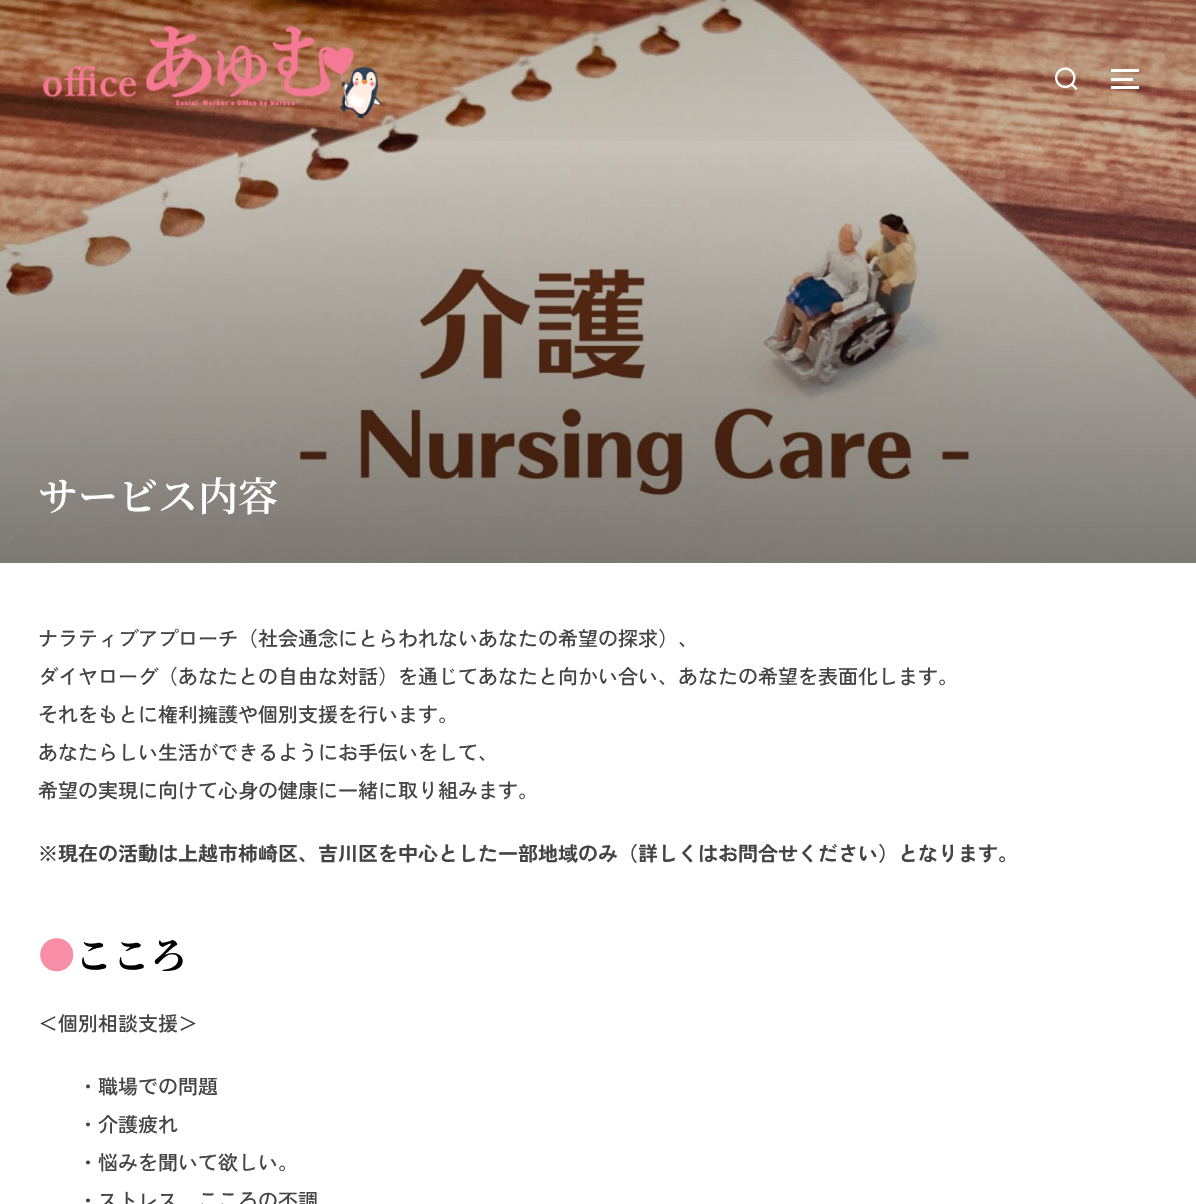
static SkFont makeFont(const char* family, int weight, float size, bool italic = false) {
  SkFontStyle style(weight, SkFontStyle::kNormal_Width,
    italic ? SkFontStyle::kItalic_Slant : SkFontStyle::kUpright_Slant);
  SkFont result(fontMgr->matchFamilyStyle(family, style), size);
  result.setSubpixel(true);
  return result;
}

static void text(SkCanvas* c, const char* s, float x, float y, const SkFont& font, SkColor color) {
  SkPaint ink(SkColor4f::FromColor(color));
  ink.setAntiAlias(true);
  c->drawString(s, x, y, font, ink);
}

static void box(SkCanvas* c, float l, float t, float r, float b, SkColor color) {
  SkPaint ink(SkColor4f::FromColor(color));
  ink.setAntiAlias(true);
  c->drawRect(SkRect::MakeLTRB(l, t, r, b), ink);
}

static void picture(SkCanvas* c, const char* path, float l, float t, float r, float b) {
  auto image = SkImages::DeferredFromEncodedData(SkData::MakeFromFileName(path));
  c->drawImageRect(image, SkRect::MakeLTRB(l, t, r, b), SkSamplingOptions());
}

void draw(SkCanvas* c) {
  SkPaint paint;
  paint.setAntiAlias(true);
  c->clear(0xffffffff);
  picture(c, "img_03.png", 0, 0, 1196, 563);
  {
    const SkColor colors[] = {0x1a000000, 0x80000000};
    const float stops[] = {0, 1};
    const SkPoint ends[] = {{598, 0}, {598, 563}};
    paint.setShader(SkGradientShader::MakeLinear(ends, colors, stops, 2, SkTileMode::kClamp));
    paint.setAlpha(255);
  }
  c->drawRect(SkRect::MakeLTRB(0, 0, 1196, 563), paint);
  {
    const SkColor colors[] = {0x33000000, 0x00000000};
    const float stops[] = {0.01f, 1};
    const SkPoint ends[] = {{598, 0}, {598, 158}};
    paint.setShader(SkGradientShader::MakeLinear(ends, colors, stops, 2, SkTileMode::kClamp));
    paint.setAlpha(255);
  }
  c->drawRect(SkRect::MakeLTRB(0, 0, 1196, 141), paint);
  picture(c, "img_01.png", 42, 26, 382, 120);
  picture(c, "img_02.png", 1055, 67, 1078, 90);
  box(c, 1111, 69, 1139, 72, 0xffffffff);
  box(c, 1111, 78, 1133, 81, 0xffffffff);
  box(c, 1111, 86, 1139, 89, 0xffffffff);
  SkFont face1 = makeFont("Noto Serif JP", 600, 40);
  text(c, "サービス内容", 38, 511, face1, 0xffffffff);
  SkFont face2 = makeFont("Zen Kaku Gothic Antique", 500, 20);
  text(c, "ナラティブアプローチ（社会通念にとらわれないあなたの希望の探求）、", 38, 646, face2, 0xff444444);
  text(c, "ダイヤローグ（あなたとの自由な対話）を通じてあなたと向かい合い、あなたの希望を表面化します。", 38, 684, face2, 0xff444444);
  text(c, "それをもとに権利擁護や個別支援を行います。", 38, 722, face2, 0xff444444);
  text(c, "あなたらしい生活ができるようにお手伝いをして、", 38, 760, face2, 0xff444444);
  text(c, "希望の実現に向けて心身の健康に一緒に取り組みます。", 38, 798, face2, 0xff444444);
  SkFont face3 = makeFont("Zen Kaku Gothic Antique", 700, 20);
  text(c, "※現在の活動は上越市柿崎区、吉川区を中心とした一部地域のみ（詳しくはお問合せください）となります。", 38, 861, face3, 0xff444444);
  SkFont face4 = makeFont("Noto Serif JP", 700, 37.5f);
  text(c, "●", 38, 969, face4, 0xfff78da7);
  text(c, "こころ", 75, 969, face4, 0xff000000);
  text(c, "＜個別相談支援＞", 38, 1031, face2, 0xff444444);
  text(c, "・職場での問題", 78, 1094, face2, 0xff444444);
  text(c, "・介護疲れ", 78, 1132, face2, 0xff444444);
  text(c, "・悩みを聞いて欲しい。", 78, 1170, face2, 0xff444444);
  text(c, "・ストレス、こころの不調", 78, 1208, face2, 0xff444444);
}
